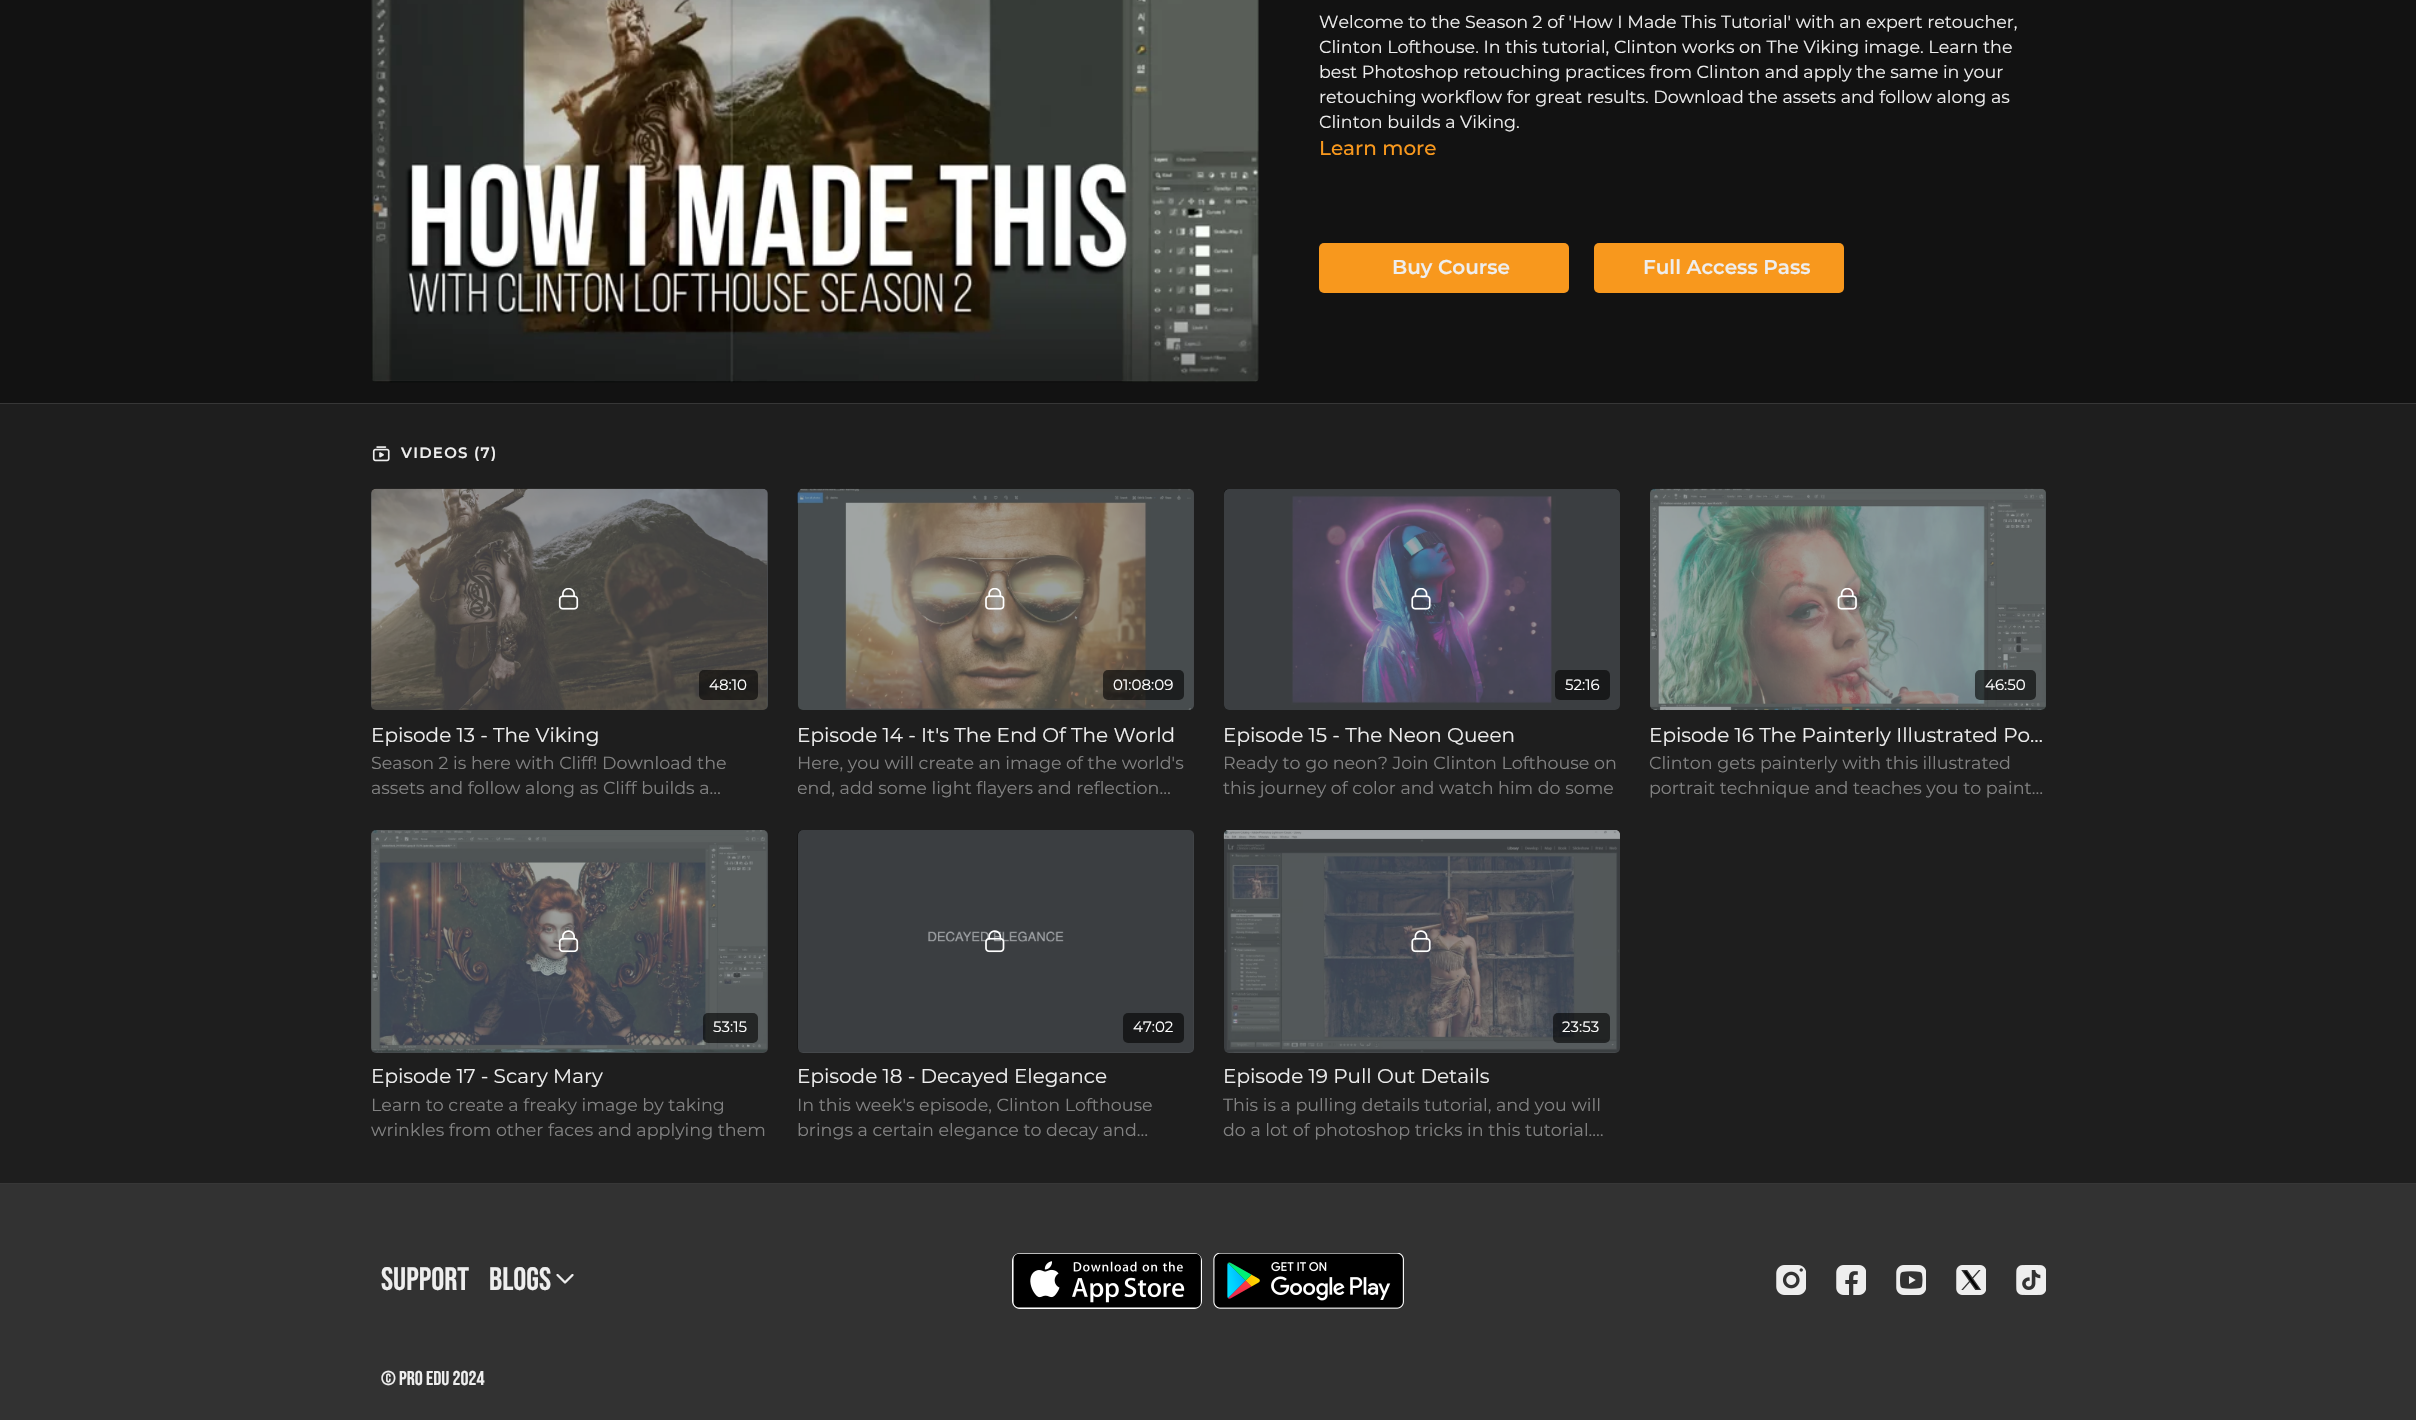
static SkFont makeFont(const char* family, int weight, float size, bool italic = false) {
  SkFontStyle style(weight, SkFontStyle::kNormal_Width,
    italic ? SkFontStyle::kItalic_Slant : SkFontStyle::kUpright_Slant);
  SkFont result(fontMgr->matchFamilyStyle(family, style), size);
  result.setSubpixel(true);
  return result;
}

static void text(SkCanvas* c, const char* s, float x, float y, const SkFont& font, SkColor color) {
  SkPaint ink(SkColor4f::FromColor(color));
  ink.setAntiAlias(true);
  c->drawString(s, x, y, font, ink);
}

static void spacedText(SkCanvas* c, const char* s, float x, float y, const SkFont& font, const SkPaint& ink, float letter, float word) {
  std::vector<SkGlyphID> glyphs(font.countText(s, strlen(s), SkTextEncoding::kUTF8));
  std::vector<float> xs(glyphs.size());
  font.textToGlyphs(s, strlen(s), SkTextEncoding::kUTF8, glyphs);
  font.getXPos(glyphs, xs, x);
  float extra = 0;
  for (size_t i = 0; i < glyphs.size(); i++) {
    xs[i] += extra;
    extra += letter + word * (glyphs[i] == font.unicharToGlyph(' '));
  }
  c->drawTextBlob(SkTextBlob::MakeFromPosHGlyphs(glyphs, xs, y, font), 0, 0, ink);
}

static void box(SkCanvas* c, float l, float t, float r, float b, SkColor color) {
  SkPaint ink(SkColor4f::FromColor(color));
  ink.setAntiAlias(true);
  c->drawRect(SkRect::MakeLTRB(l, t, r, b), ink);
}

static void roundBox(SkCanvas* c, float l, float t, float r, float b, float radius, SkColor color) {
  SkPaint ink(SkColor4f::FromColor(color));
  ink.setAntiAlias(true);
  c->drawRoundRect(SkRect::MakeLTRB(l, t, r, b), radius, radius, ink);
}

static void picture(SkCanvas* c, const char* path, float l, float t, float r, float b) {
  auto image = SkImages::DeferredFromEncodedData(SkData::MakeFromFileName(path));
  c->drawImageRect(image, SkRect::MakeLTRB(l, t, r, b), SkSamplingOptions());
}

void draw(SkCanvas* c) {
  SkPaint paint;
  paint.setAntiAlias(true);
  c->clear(0xff121212);
  picture(c, "img_01.png", 371, 0, 1259, 383);
  SkFont face1 = makeFont("Montserrat", 400, 17.5f);
  text(c, "Welcome to the Season 2 of 'How I Made This Tutorial' with an expert retoucher,", 1319, 28, face1, 0xffeeeeee);
  text(c, "Clinton Lofthouse. In this tutorial, Clinton works on The Viking image. Learn the", 1319, 53, face1, 0xffeeeeee);
  text(c, "best Photoshop retouching practices from Clinton and apply the same in your", 1319, 78, face1, 0xffeeeeee);
  text(c, "retouching workflow for great results. Download the assets and follow along as", 1319, 103, face1, 0xffeeeeee);
  text(c, "Clinton builds a Viking.", 1319, 128, face1, 0xffeeeeee);
  SkFont face2 = makeFont("Montserrat", 500, 20);
  text(c, "Learn more", 1319, 155, face2, 0xfff8981d);
  roundBox(c, 1319, 243, 1569, 293, 5, 0xfff8981d);
  SkFont face3 = makeFont("Montserrat", 600, 20);
  text(c, "Buy Course", 1392, 274, face3, 0xffeeeeee);
  roundBox(c, 1594, 243, 1844, 293, 5, 0xfff8981d);
  text(c, "Full Access Pass", 1643, 274, face3, 0xffeeeeee);
  box(c, 0, 404, 2416, 1183, 0xff1e1e1e);
  box(c, 0, 403, 2416, 404, 0xff373737);
  box(c, 0, 1183, 2416, 1184, 0xff373737);
  picture(c, "img_02.png", 372, 446, 390, 462);
  SkFont face4 = makeFont("Montserrat", 600, 15);
  paint.setColor(0xffeeeeee);
  spacedText(c, "VIDEOS (7)", 401, 458, face4, paint, 1.25f, 0);
  picture(c, "img_03.png", 371, 488, 768, 710);
  roundBox(c, 371, 489, 768, 710, 5, 0x9962676d);
  picture(c, "img_04.png", 558, 588, 579, 610);
  roundBox(c, 699, 670, 758, 700, 5, 0x99000000);
  SkFont face5 = makeFont("Montserrat", 400, 15);
  text(c, "48:10", 709, 690, face5, 0xffffffff);
  SkFont face6 = makeFont("Montserrat", 400, 20);
  text(c, "Episode 13 - The Viking", 371, 742, face6, 0xffeeeeee);
  text(c, "Season 2 is here with Cliff! Download the", 371, 769, face1, 0xff818181);
  text(c, "assets and follow along as Cliff builds a…", 371, 794, face1, 0xff818181);
  picture(c, "img_05.png", 797, 488, 1193, 710);
  roundBox(c, 798, 489, 1194, 710, 5, 0x9962676d);
  picture(c, "img_06.png", 985, 588, 1005, 610);
  roundBox(c, 1103, 670, 1184, 700, 5, 0x99000000);
  text(c, "01:08:09", 1113, 690, face5, 0xffffffff);
  text(c, "Episode 14 - It's The End Of The World", 797, 742, face6, 0xffeeeeee);
  text(c, "Here, you will create an image of the world's", 797, 769, face1, 0xff818181);
  c->save();
  c->clipRect(SkRect::MakeLTRB(798, 750, 1194, 800));
  text(c, "end, add some light flayers and reflection…", 797, 794, face1, 0xff818181);
  c->restore();
  picture(c, "img_07.png", 1224, 489, 1620, 710);
  roundBox(c, 1224, 489, 1620, 710, 5, 0x9962676d);
  picture(c, "img_08.png", 1411, 588, 1431, 610);
  roundBox(c, 1555, 670, 1610, 700, 5, 0xff18191a);
  text(c, "52:16", 1565, 690, face5, 0xffffffff);
  text(c, "Episode 15 - The Neon Queen", 1223, 742, face6, 0xffeeeeee);
  text(c, "Ready to go neon? Join Clinton Lofthouse on", 1223, 769, face1, 0xff818181);
  text(c, "this journey of color and watch him do some", 1223, 794, face1, 0xff818181);
  picture(c, "img_09.png", 1650, 488, 2046, 710);
  roundBox(c, 1650, 489, 2046, 710, 5, 0x9962676d);
  picture(c, "img_10.png", 1837, 588, 1857, 610);
  roundBox(c, 1975, 670, 2036, 700, 5, 0x99000000);
  text(c, "46:50", 1985, 690, face5, 0xffffffff);
  text(c, "Episode 16 The Painterly Illustrated Po…", 1649, 742, face6, 0xffeeeeee);
  text(c, "Clinton gets painterly with this illustrated", 1649, 769, face1, 0xff818181);
  text(c, "portrait technique and teaches you to paint…", 1649, 794, face1, 0xff818181);
  picture(c, "img_11.png", 371, 830, 768, 1053);
  roundBox(c, 371, 830, 768, 1053, 5, 0x9962676d);
  picture(c, "img_12.png", 558, 930, 579, 953);
  roundBox(c, 703, 1013, 758, 1043, 5, 0x99000000);
  text(c, "53:15", 713, 1032, face5, 0xffffffff);
  text(c, "Episode 17 - Scary Mary", 371, 1083, face6, 0xffeeeeee);
  text(c, "Learn to create a freaky image by taking", 371, 1111, face1, 0xff818181);
  text(c, "wrinkles from other faces and applying them", 371, 1136, face1, 0xff818181);
  picture(c, "img_13.png", 797, 830, 1194, 1053);
  roundBox(c, 798, 830, 1194, 1053, 5, 0x9962676d);
  picture(c, "img_14.png", 985, 930, 1005, 953);
  roundBox(c, 1123, 1013, 1184, 1043, 5, 0xff18191a);
  text(c, "47:02", 1133, 1032, face5, 0xffffffff);
  text(c, "Episode 18 - Decayed Elegance", 797, 1083, face6, 0xffeeeeee);
  text(c, "In this week's episode, Clinton Lofthouse", 797, 1111, face1, 0xff818181);
  text(c, "brings a certain elegance to decay and…", 797, 1136, face1, 0xff818181);
  picture(c, "img_15.png", 1223, 830, 1620, 1053);
  roundBox(c, 1224, 830, 1620, 1053, 5, 0x9962676d);
  picture(c, "img_16.png", 1411, 930, 1431, 953);
  roundBox(c, 1553, 1013, 1610, 1043, 5, 0x99000000);
  text(c, "23:53", 1562, 1032, face5, 0xffffffff);
  text(c, "Episode 19 Pull Out Details", 1223, 1083, face6, 0xffeeeeee);
  text(c, "This is a pulling details tutorial, and you will", 1223, 1111, face1, 0xff818181);
  text(c, "do a lot of photoshop tricks in this tutorial.…", 1223, 1136, face1, 0xff818181);
  box(c, 0, 1184, 2416, 1420, 0xff323232);
  SkFont face7 = makeFont("Bebas Neue", 400, 32.5f);
  text(c, "Support", 381, 1290, face7, 0xffeeeeee);
  text(c, "BLOGS", 489, 1290, face7, 0xffeeeeee);
  picture(c, "img_17.png", 556, 1274, 574, 1284);
  picture(c, "img_18.png", 1012, 1253, 1202, 1309);
  picture(c, "img_19.png", 1213, 1253, 1404, 1309);
  picture(c, "img_20.png", 1776, 1265, 1806, 1295);
  picture(c, "img_21.png", 1836, 1265, 1866, 1295);
  picture(c, "img_22.png", 1896, 1265, 1926, 1295);
  picture(c, "img_23.png", 1956, 1265, 1986, 1295);
  picture(c, "img_24.png", 2016, 1265, 2046, 1295);
  SkFont face8 = makeFont("Bebas Neue", 400, 20);
  text(c, "© PRO EDU 2024", 381, 1385, face8, 0xffeeeeee);
}
